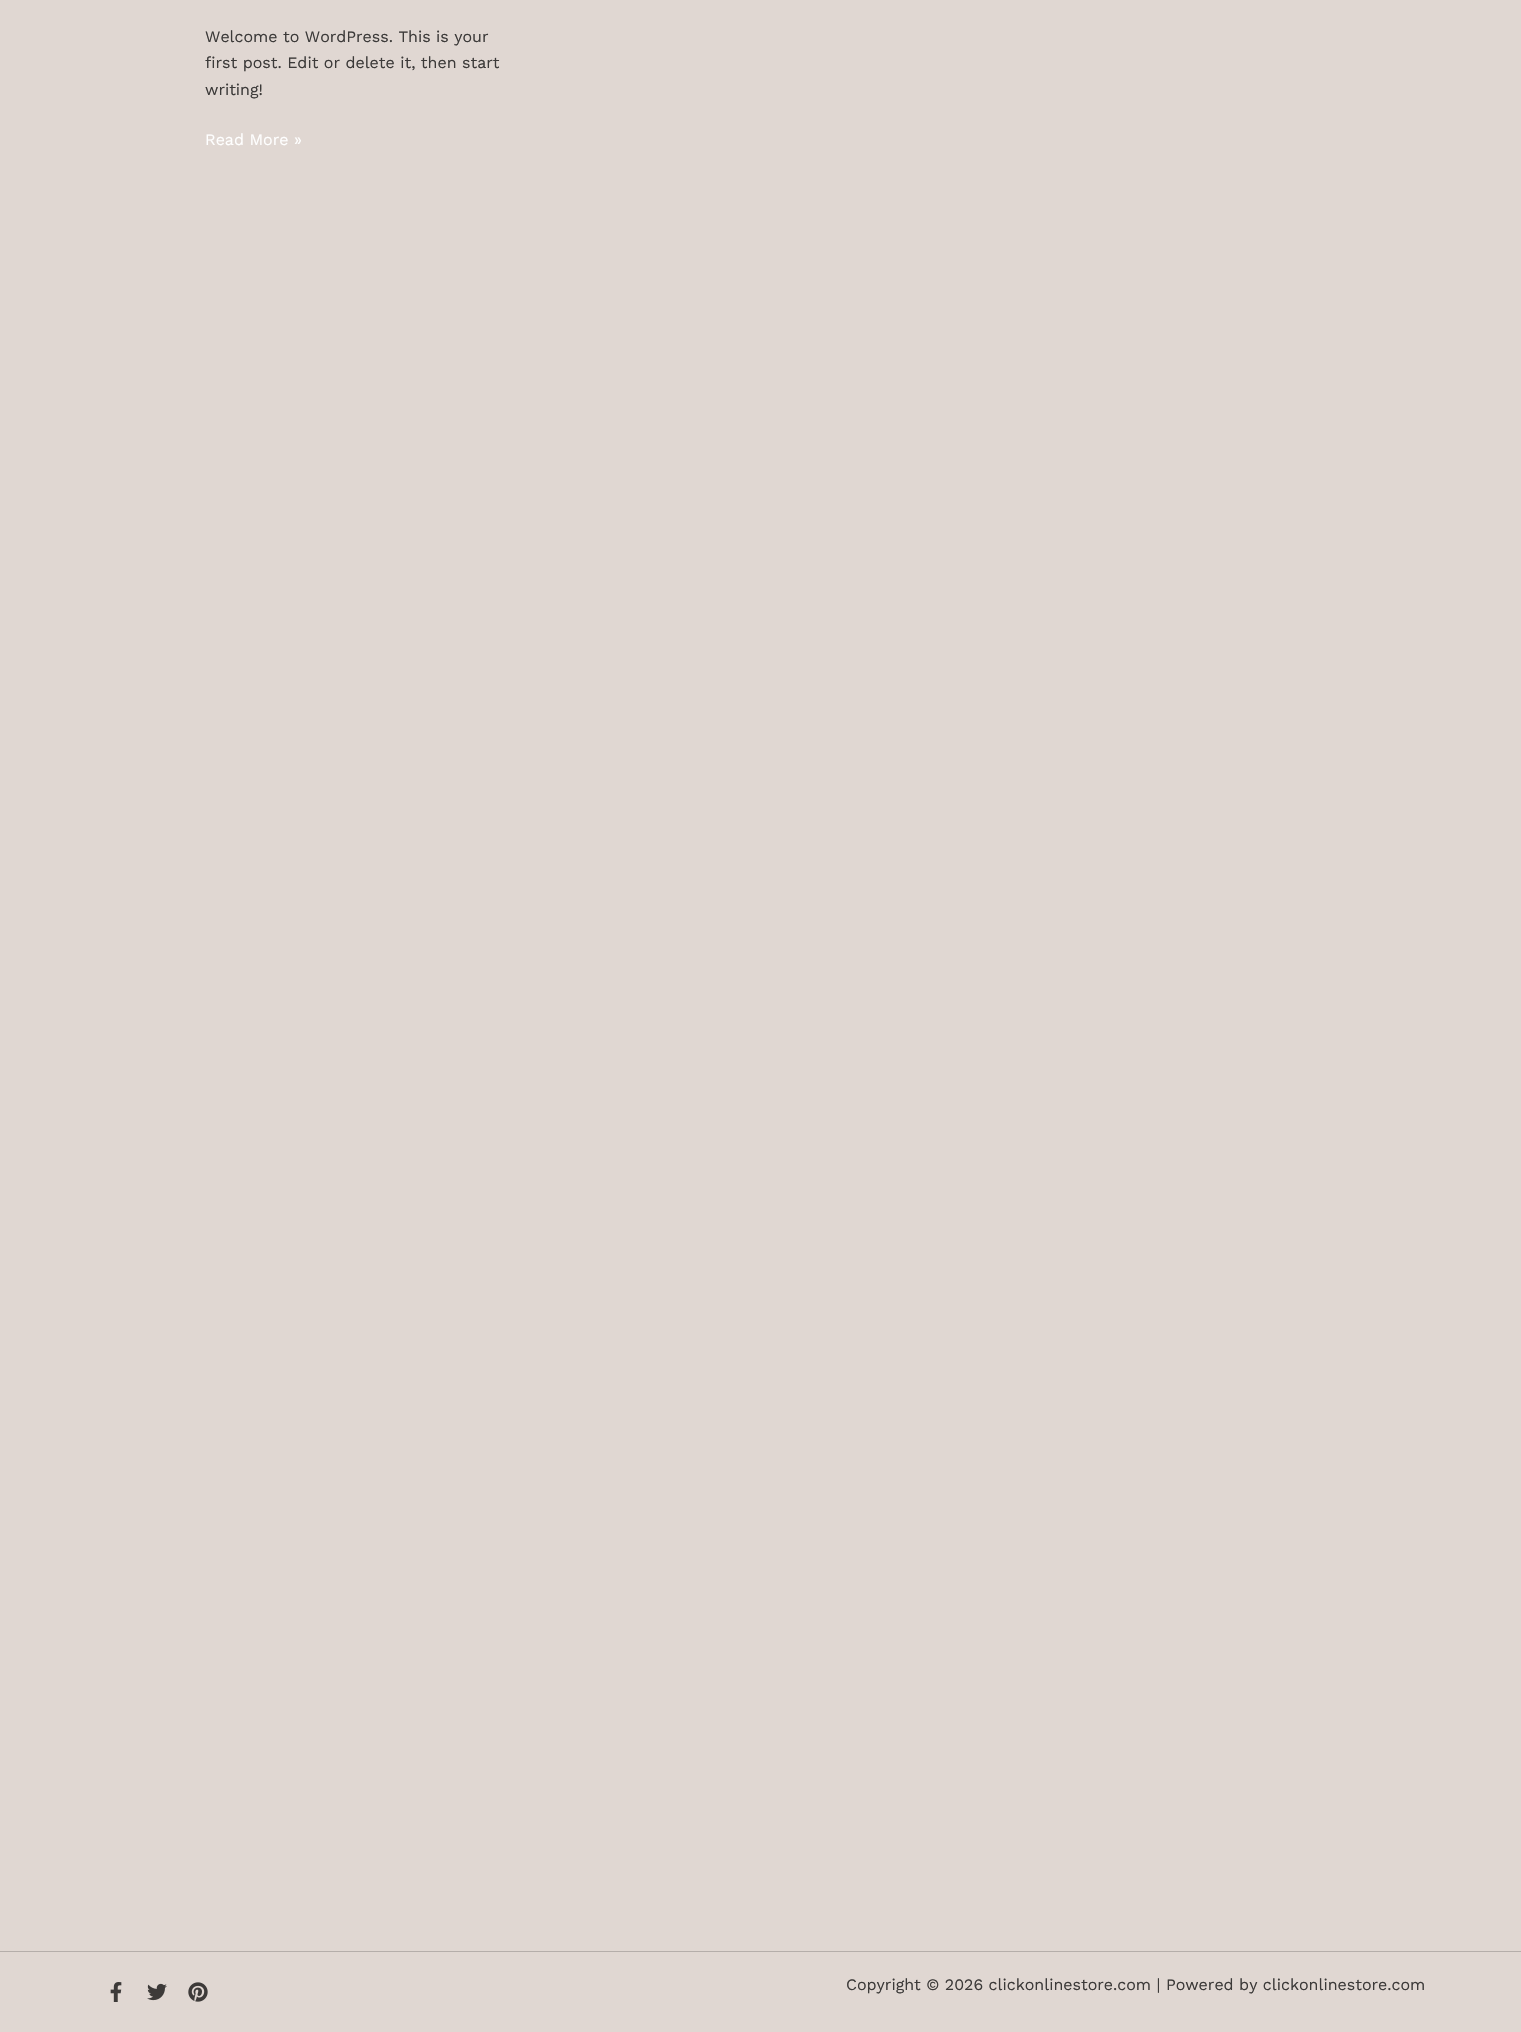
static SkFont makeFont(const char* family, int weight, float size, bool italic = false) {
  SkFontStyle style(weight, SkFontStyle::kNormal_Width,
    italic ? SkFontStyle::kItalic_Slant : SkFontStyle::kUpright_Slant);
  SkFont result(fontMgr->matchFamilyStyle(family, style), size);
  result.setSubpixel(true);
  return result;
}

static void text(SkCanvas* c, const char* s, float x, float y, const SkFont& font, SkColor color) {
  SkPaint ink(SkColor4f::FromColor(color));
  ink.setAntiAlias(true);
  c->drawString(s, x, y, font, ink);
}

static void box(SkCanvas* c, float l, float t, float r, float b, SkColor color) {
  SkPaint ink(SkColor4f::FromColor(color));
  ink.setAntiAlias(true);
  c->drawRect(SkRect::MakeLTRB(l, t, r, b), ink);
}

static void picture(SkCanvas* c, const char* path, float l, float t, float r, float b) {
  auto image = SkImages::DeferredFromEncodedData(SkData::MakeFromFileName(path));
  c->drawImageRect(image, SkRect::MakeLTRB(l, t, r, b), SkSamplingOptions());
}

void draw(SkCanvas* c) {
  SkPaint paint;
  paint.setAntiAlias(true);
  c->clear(0xffe0d7d2);
  SkFont face1 = makeFont("Work Sans", 400, 16);
  text(c, "Welcome to WordPress. This is your", 205, 42, face1, 0xff3c3a39);
  text(c, "first post. Edit or delete it, then start", 205, 68, face1, 0xff3c3a39);
  text(c, "writing!", 205, 95, face1, 0xff3c3a39);
  text(c, "Read More »", 205, 145, face1, 0xffffffff);
  box(c, 0, 1951, 1521, 1952, 0xffb5aeaa);
  picture(c, "img_01.png", 110, 1982, 122, 2002);
  picture(c, "img_02.png", 147, 1983, 167, 2001);
  picture(c, "img_03.png", 188, 1982, 208, 2002);
  text(c, "Copyright © 2026 clickonlinestore.com | Powered by clickonlinestore.com", 846, 1990, face1, 0xff3c3a39);
}
